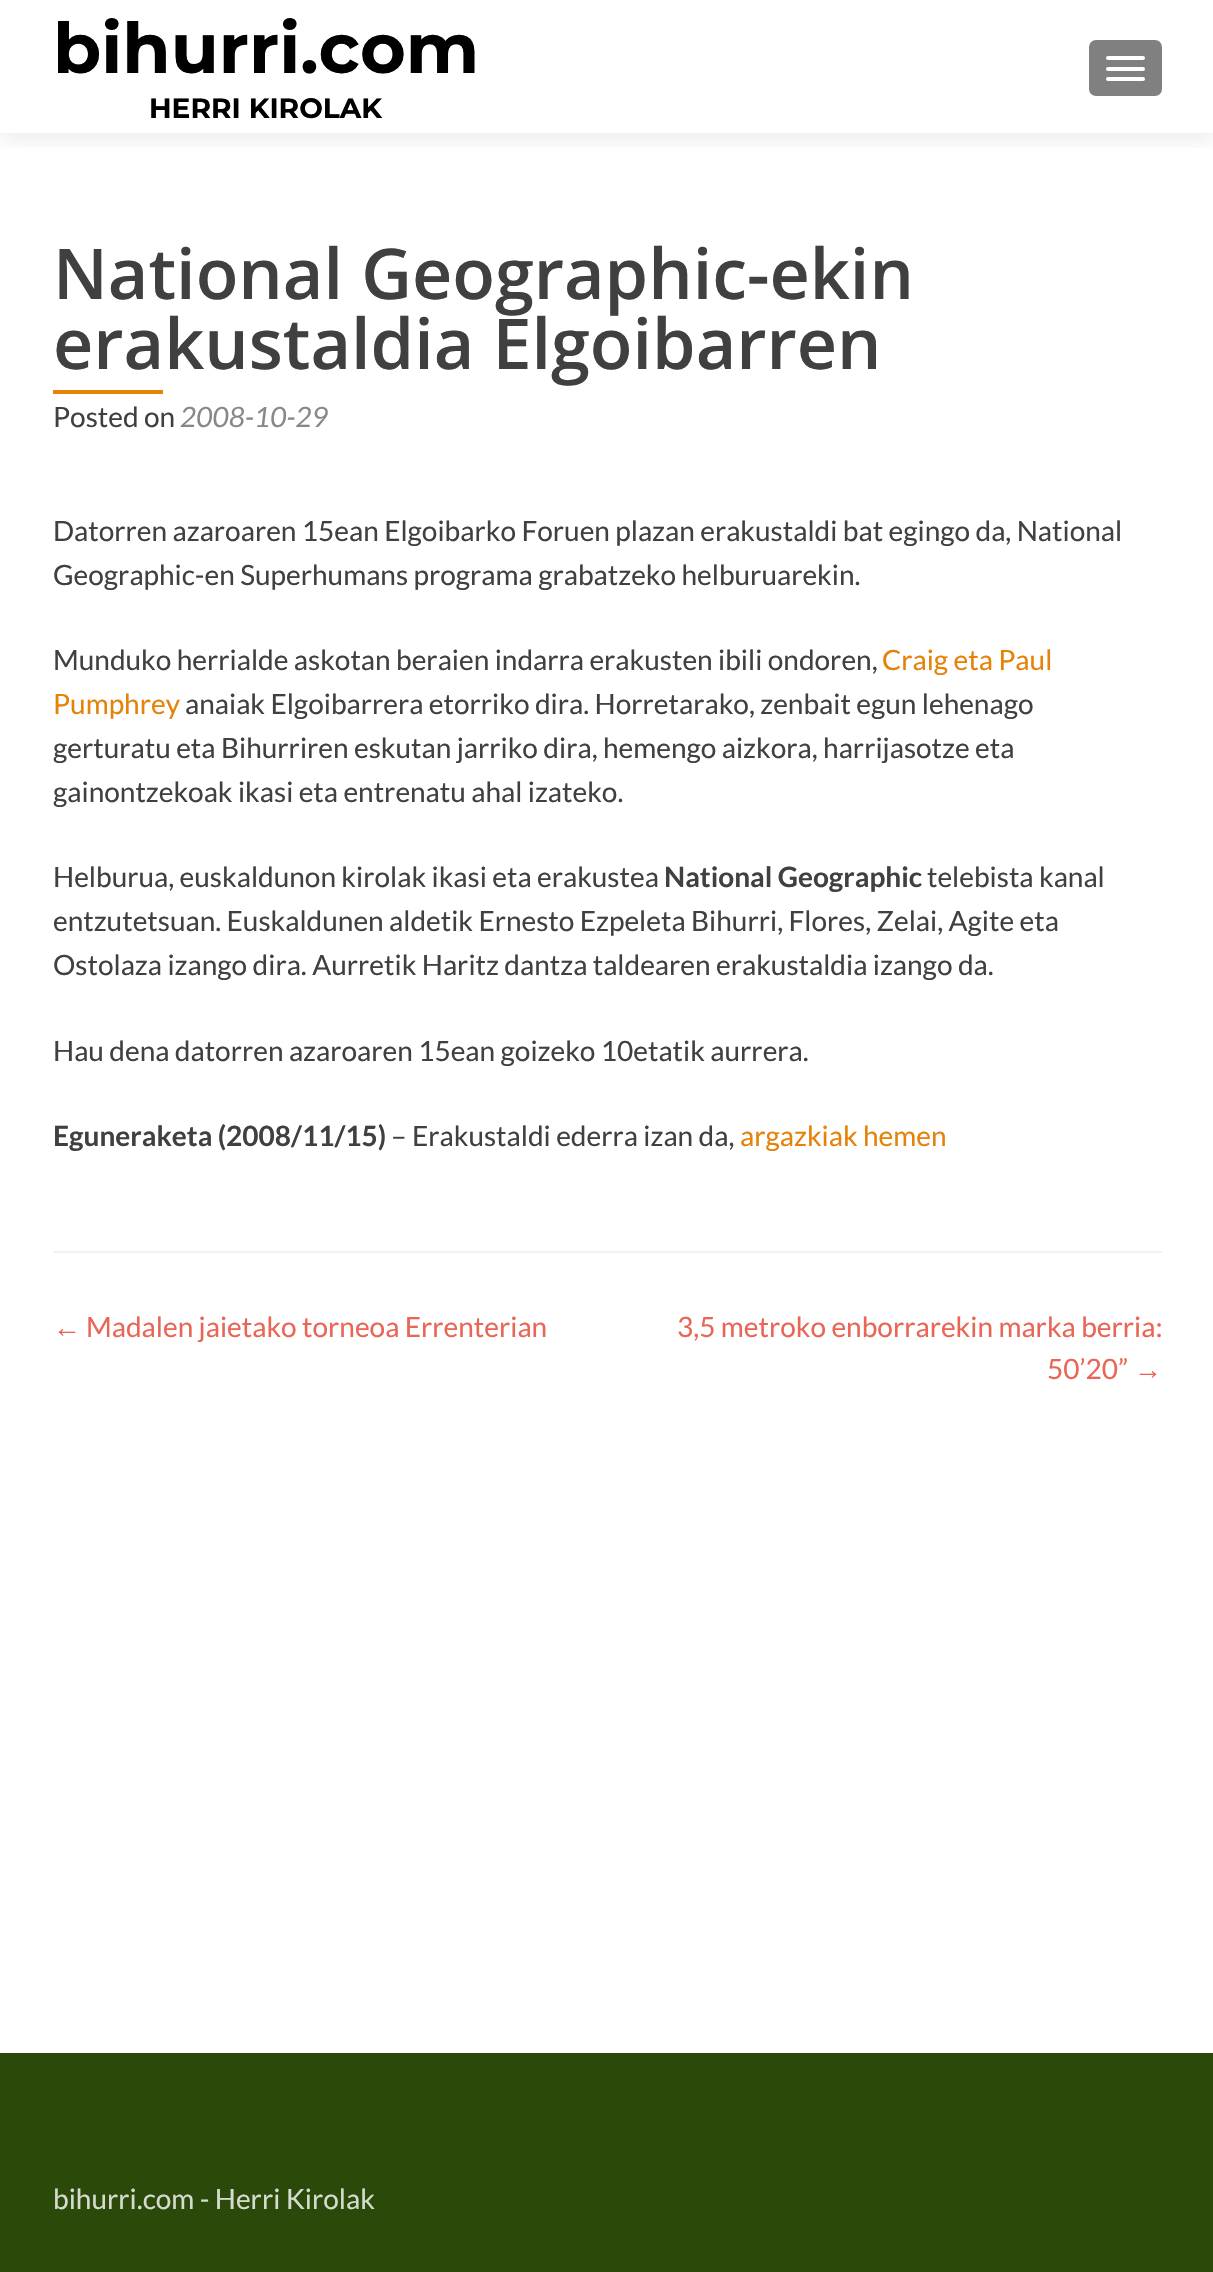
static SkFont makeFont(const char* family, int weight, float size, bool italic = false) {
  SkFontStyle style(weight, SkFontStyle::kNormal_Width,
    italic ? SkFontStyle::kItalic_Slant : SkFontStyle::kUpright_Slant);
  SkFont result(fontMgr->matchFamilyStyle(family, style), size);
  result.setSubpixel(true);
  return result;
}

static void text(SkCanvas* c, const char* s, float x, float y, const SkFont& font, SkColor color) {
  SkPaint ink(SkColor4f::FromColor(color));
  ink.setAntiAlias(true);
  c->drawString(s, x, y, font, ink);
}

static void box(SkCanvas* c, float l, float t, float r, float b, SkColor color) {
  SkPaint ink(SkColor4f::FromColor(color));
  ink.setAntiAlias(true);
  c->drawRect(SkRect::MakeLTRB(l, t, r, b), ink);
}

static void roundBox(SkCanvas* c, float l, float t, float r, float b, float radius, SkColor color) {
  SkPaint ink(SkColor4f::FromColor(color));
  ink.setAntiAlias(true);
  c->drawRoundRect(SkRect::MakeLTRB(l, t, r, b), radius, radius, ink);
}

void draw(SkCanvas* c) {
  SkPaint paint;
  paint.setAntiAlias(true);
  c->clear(0xffffffff);
  c->save();
  c->clipRect(SkRect::MakeLTRB(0, 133, 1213, 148));
  paint.setColor(0x14323232);
  paint.setMaskFilter(SkMaskFilter::MakeBlur(kNormal_SkBlurStyle, 9.5f));
  c->drawRect(SkRect::MakeLTRB(0, 9, 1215, 142), paint);
  paint.setMaskFilter(nullptr);
  c->restore();
  SkFont face1 = makeFont("Montserrat", 700, 70);
  text(c, "bihurri.com", 53, 73, face1, 0xff000000);
  SkFont face2 = makeFont("Montserrat", 700, 28);
  text(c, "HERRI KIROLAK", 149, 118, face2, 0xff000000);
  roundBox(c, 1089, 40, 1162, 96, 7, 0xff808080);
  roundBox(c, 1106, 56, 1145, 60, 2, 0xffffffff);
  roundBox(c, 1106, 67, 1145, 71, 2, 0xffffffff);
  roundBox(c, 1106, 77, 1145, 81, 2, 0xffffffff);
  box(c, 53, 1251, 1162, 1253, 0xfff2f2f2);
  SkFont face3 = makeFont("Open Sans", 600, 70);
  text(c, "National Geographic-ekin", 53, 299, face3, 0xff404040);
  text(c, "erakustaldia Elgoibarren", 53, 369, face3, 0xff404040);
  box(c, 53, 390, 163, 394, 0xffe58207);
  SkFont face4 = makeFont("Lato", 400, 28);
  text(c, "Posted on", 53, 427, face4, 0xff404040);
  SkFont face5 = makeFont("Lato", 400, 28, true);
  text(c, "2008-10-29", 180, 427, face5, 0xff888888);
  text(c, "Datorren azaroaren 15ean Elgoibarko Foruen plazan erakustaldi bat egingo da, National", 53, 541, face4, 0xff404040);
  text(c, "Geographic-en Superhumans programa grabatzeko helburuarekin.", 53, 585, face4, 0xff404040);
  text(c, "Munduko herrialde askotan beraien indarra erakusten ibili ondoren,", 53, 670, face4, 0xff404040);
  text(c, "Craig eta Paul", 882, 670, face4, 0xffe58207);
  text(c, "Pumphrey", 53, 714, face4, 0xffe58207);
  text(c, "anaiak Elgoibarrera etorriko dira. Horretarako, zenbait egun lehenago", 185, 714, face4, 0xff404040);
  text(c, "gerturatu eta Bihurriren eskutan jarriko dira, hemengo aizkora, harrijasotze eta", 53, 758, face4, 0xff404040);
  text(c, "gainontzekoak ikasi eta entrenatu ahal izateko.", 53, 802, face4, 0xff404040);
  text(c, "Helburua, euskaldunon kirolak ikasi eta erakustea", 53, 887, face4, 0xff404040);
  SkFont face6 = makeFont("Lato", 700, 28);
  text(c, "National Geographic", 664, 887, face6, 0xff404040);
  text(c, "telebista kanal", 927, 887, face4, 0xff404040);
  text(c, "entzutetsuan. Euskaldunen aldetik Ernesto Ezpeleta Bihurri, Flores, Zelai, Agite eta", 53, 931, face4, 0xff404040);
  text(c, "Ostolaza izango dira. Aurretik Haritz dantza taldearen erakustaldia izango da.", 53, 975, face4, 0xff404040);
  text(c, "Hau dena datorren azaroaren 15ean goizeko 10etatik aurrera.", 53, 1061, face4, 0xff404040);
  text(c, "Eguneraketa (2008/11/15)", 53, 1146, face6, 0xff404040);
  text(c, "– Erakustaldi ederra izan da,", 391, 1146, face4, 0xff404040);
  text(c, "argazkiak hemen", 740, 1146, face4, 0xffe58207);
  SkFont face7 = makeFont("Liberation Sans", 400, 28);
  text(c, "←", 53, 1337, face7, 0xffe96656);
  text(c, "Madalen jaietako torneoa Errenterian", 86, 1337, face4, 0xffe96656);
  text(c, "3,5 metroko enborrarekin marka berria:", 677, 1337, face4, 0xffe96656);
  text(c, "50’20”", 1047, 1379, face4, 0xffe96656);
  text(c, "→", 1134, 1379, face7, 0xffe96656);
  box(c, 0, 2053, 1213, 2272, 0xff2b4908);
  text(c, "bihurri.com - Herri Kirolak", 53, 2209, face4, 0xffd5dbce);
}
